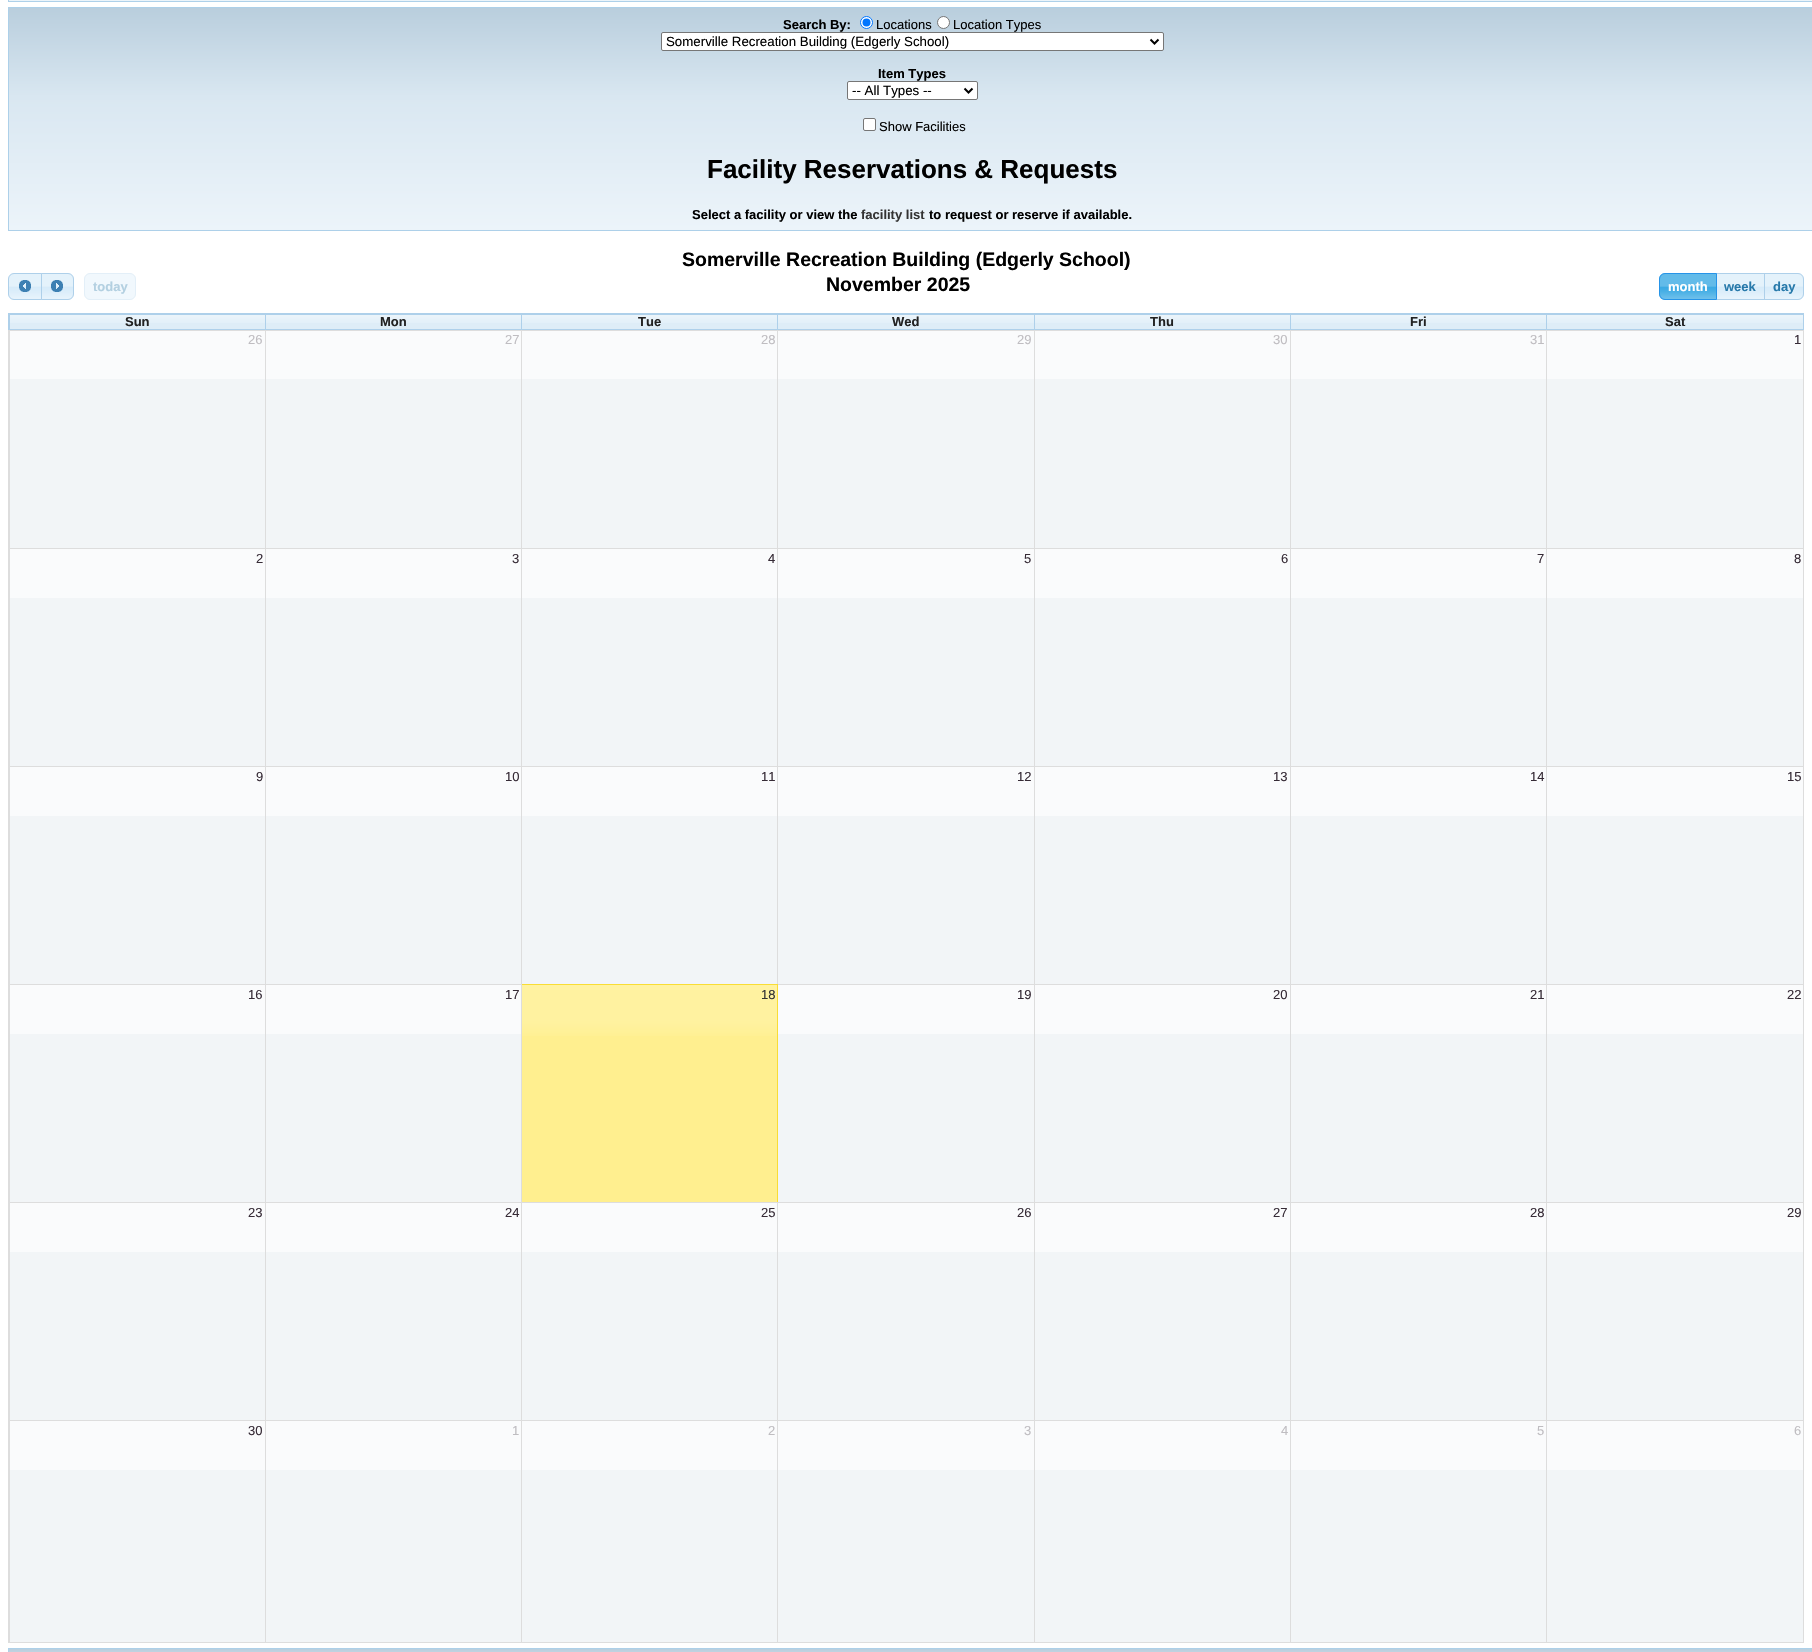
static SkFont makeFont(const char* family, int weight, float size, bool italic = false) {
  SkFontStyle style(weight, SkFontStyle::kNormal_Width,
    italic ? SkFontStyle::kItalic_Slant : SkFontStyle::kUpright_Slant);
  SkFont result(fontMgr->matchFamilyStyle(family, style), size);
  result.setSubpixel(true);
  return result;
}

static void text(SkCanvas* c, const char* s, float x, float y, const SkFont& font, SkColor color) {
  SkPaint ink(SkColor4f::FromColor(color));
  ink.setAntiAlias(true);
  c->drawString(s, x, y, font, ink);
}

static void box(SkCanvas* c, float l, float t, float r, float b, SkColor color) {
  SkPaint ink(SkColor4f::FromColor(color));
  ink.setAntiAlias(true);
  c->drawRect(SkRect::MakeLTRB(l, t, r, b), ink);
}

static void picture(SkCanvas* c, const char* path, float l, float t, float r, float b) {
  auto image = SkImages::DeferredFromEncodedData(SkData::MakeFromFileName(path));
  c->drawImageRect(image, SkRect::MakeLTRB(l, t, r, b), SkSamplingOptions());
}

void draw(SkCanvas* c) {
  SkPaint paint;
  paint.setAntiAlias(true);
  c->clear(0xffffffff);
  {
    const SkColor colors[] = {0xffb9cedd, 0xffd9e7f1, 0xffecf4fa};
    const float stops[] = {0, 0.4f, 1};
    const SkPoint ends[] = {{912, -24}, {912, 1}};
    paint.setShader(SkGradientShader::MakeLinear(ends, colors, stops, 3, SkTileMode::kClamp));
    paint.setAlpha(255);
  }
  c->drawRect(SkRect::MakeLTRB(8, 0, 1812, 1), paint);
  paint.setStyle(SkPaint::kStroke_Style);
  paint.setStrokeWidth(1);
  paint.setShader(nullptr);
  paint.setColor(0xffadd0e9);
  c->drawRect(SkRect::MakeLTRB(8.5f, -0.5f, 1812.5f, 1.5f), paint);
  paint.setStyle(SkPaint::kFill_Style);
  {
    const SkColor colors[] = {0xffb9cedd, 0xffd9e7f1, 0xffecf4fa};
    const float stops[] = {0, 0.4f, 1};
    const SkPoint ends[] = {{912, 8}, {912, 230}};
    paint.setShader(SkGradientShader::MakeLinear(ends, colors, stops, 3, SkTileMode::kClamp));
    paint.setAlpha(255);
  }
  c->drawRect(SkRect::MakeLTRB(9, 8, 1812, 230), paint);
  paint.setStyle(SkPaint::kStroke_Style);
  paint.setShader(nullptr);
  paint.setColor(0xffadd0e9);
  c->drawRect(SkRect::MakeLTRB(8.5f, 7.5f, 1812.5f, 230.5f), paint);
  SkFont face1 = makeFont("Liberation Sans", 700, 13);
  text(c, "Search By:", 783, 29, face1, 0xff000000);
  paint.setStyle(SkPaint::kFill_Style);
  paint.setColor(0xffffffff);
  c->drawCircle(866.5f, 22.5f, 6, paint);
  paint.setStyle(SkPaint::kStroke_Style);
  paint.setColor(0xff0075ff);
  c->drawCircle(866.5f, 22.5f, 6, paint);
  paint.setStyle(SkPaint::kFill_Style);
  c->drawCircle(866.5f, 22.5f, 4, paint);
  SkFont face2 = makeFont("Liberation Sans", 400, 13);
  text(c, "Locations", 876, 29, face2, 0xff000000);
  paint.setColor(0xffffffff);
  c->drawCircle(943.5f, 22.5f, 6, paint);
  paint.setStyle(SkPaint::kStroke_Style);
  paint.setColor(0xff767676);
  c->drawCircle(943.5f, 22.5f, 6, paint);
  text(c, "Location Types", 953, 29, face2, 0xff000000);
  paint.setStyle(SkPaint::kFill_Style);
  paint.setColor(0xffffffff);
  c->drawRoundRect(SkRect::MakeLTRB(661.5f, 32.5f, 1163.5f, 50.5f), 1.5f, 1.5f, paint);
  paint.setStyle(SkPaint::kStroke_Style);
  paint.setColor(0xff767676);
  c->drawRoundRect(SkRect::MakeLTRB(661.5f, 32.5f, 1163.5f, 50.5f), 1.5f, 1.5f, paint);
  paint.setStrokeWidth(2);
  paint.setColor(0xff000000);
  c->drawPath(SkPathBuilder().moveTo(1150.5f, 39.5f).lineTo(1154.5f, 43.5f).lineTo(1158.5f, 39.5f).detach(), paint);
  SkFont face3 = makeFont("Liberation Sans", 400, 13.3f);
  text(c, "Somerville Recreation Building (Edgerly School)", 666, 46, face3, 0xff000000);
  text(c, "Item Types", 878, 78, face1, 0xff000000);
  paint.setStyle(SkPaint::kFill_Style);
  paint.setColor(0xffffffff);
  c->drawRoundRect(SkRect::MakeLTRB(847.5f, 81.5f, 977.5f, 99.5f), 1.5f, 1.5f, paint);
  paint.setStyle(SkPaint::kStroke_Style);
  paint.setStrokeWidth(1);
  paint.setColor(0xff767676);
  c->drawRoundRect(SkRect::MakeLTRB(847.5f, 81.5f, 977.5f, 99.5f), 1.5f, 1.5f, paint);
  paint.setStrokeWidth(2);
  paint.setColor(0xff000000);
  c->drawPath(SkPathBuilder().moveTo(964.5f, 88.5f).lineTo(968.5f, 92.5f).lineTo(972.5f, 88.5f).detach(), paint);
  text(c, "-- All Types --", 852, 95, face3, 0xff000000);
  paint.setStyle(SkPaint::kFill_Style);
  paint.setColor(0xffffffff);
  c->drawRoundRect(SkRect::MakeLTRB(863.5f, 118.5f, 875.5f, 130.5f), 1.5f, 1.5f, paint);
  paint.setStyle(SkPaint::kStroke_Style);
  paint.setStrokeWidth(1);
  paint.setColor(0xff767676);
  c->drawRoundRect(SkRect::MakeLTRB(863.5f, 118.5f, 875.5f, 130.5f), 1.5f, 1.5f, paint);
  text(c, "Show Facilities", 879, 131, face2, 0xff000000);
  SkFont face4 = makeFont("Liberation Sans", 700, 26);
  text(c, "Facility Reservations & Requests", 707, 178, face4, 0xff000000);
  text(c, "Select a facility or view the", 692, 219, face1, 0xff000000);
  text(c, "facility list", 861, 219, face1, 0xff333333);
  text(c, "to request or reserve if available.", 929, 219, face1, 0xff000000);
  SkFont face5 = makeFont("Liberation Sans", 700, 19.5f);
  text(c, "Somerville Recreation Building (Edgerly School)", 682, 266, face5, 0xff000000);
  picture(c, "img_01.png", 8, 273, 41, 300);
  paint.setColor(0xffaed0ea);
  c->drawPath(SkPathBuilder().moveTo(14, 273.5f).lineTo(41.5f, 273.5f).lineTo(41.5f, 299.5f).lineTo(14, 299.5f).cubicTo(11, 299.5f, 8.5f, 297, 8.5f, 294).lineTo(8.5f, 279).cubicTo(8.5f, 276, 11, 273.5f, 14, 273.5f).close().detach(), paint);
  picture(c, "img_02.png", 19, 280, 31, 292);
  picture(c, "img_03.png", 42, 273, 74, 300);
  c->drawPath(SkPathBuilder().moveTo(41.5f, 273.5f).lineTo(68, 273.5f).cubicTo(71, 273.5f, 73.5f, 276, 73.5f, 279).lineTo(73.5f, 294).cubicTo(73.5f, 297, 71, 299.5f, 68, 299.5f).lineTo(41.5f, 299.5f).close().detach(), paint);
  picture(c, "img_04.png", 51, 280, 63, 292);
  paint.setStyle(SkPaint::kFill_Style);
  paint.setColor(0xfff1f8fd);
  c->drawRoundRect(SkRect::MakeLTRB(84.5f, 273.5f, 135.5f, 299.5f), 5.5f, 5.5f, paint);
  paint.setStyle(SkPaint::kStroke_Style);
  paint.setColor(0xffe3eff8);
  c->drawRoundRect(SkRect::MakeLTRB(84.5f, 273.5f, 135.5f, 299.5f), 5.5f, 5.5f, paint);
  text(c, "today", 93, 291, face1, 0xffb3d0e1);
  text(c, "November 2025", 826, 291, face5, 0xff000000);
  picture(c, "img_05.png", 1659, 273, 1716, 300);
  picture(c, "img_06.png", 1717, 274, 1764, 299);
  paint.setColor(0xffaed0ea);
  c->drawRect(SkRect::MakeLTRB(1716.5f, 273.5f, 1764.5f, 299.5f), paint);
  paint.setColor(0xff2694e8);
  c->drawPath(SkPathBuilder().moveTo(1665, 273.5f).lineTo(1716.5f, 273.5f).lineTo(1716.5f, 299.5f).lineTo(1665, 299.5f).cubicTo(1662, 299.5f, 1659.5f, 297, 1659.5f, 294).lineTo(1659.5f, 279).cubicTo(1659.5f, 276, 1662, 273.5f, 1665, 273.5f).close().detach(), paint);
  text(c, "month", 1668, 291, face1, 0xffffffff);
  text(c, "week", 1724, 291, face1, 0xff2779aa);
  picture(c, "img_07.png", 1765, 273, 1804, 300);
  paint.setColor(0xffaed0ea);
  c->drawPath(SkPathBuilder().moveTo(1764.5f, 273.5f).lineTo(1798, 273.5f).cubicTo(1801, 273.5f, 1803.5f, 276, 1803.5f, 279).lineTo(1803.5f, 294).cubicTo(1803.5f, 297, 1801, 299.5f, 1798, 299.5f).lineTo(1764.5f, 299.5f).close().detach(), paint);
  text(c, "day", 1773, 291, face1, 0xff2779aa);
  box(c, 8, 313, 1804, 314, 0xffaed0ea);
  box(c, 1803, 329, 1804, 1643, 0xffdddddd);
  box(c, 1803, 313, 1804, 330, 0xffaed0ea);
  box(c, 8, 1642, 1804, 1643, 0xffdddddd);
  box(c, 8, 329, 9, 1643, 0xffdddddd);
  box(c, 8, 329, 1804, 330, 0xffaed0ea);
  box(c, 8, 313, 9, 330, 0xffaed0ea);
  box(c, 10, 323, 265, 329, 0xffdeedf7);
  picture(c, "img_08.png", 10, 315, 265, 323);
  box(c, 1546, 314, 1804, 315, 0xffaed0ea);
  box(c, 1546, 314, 1547, 330, 0xffaed0ea);
  box(c, 1290, 314, 1547, 315, 0xffaed0ea);
  box(c, 1290, 314, 1291, 330, 0xffaed0ea);
  box(c, 1034, 314, 1291, 315, 0xffaed0ea);
  box(c, 1034, 314, 1035, 330, 0xffaed0ea);
  box(c, 777, 314, 1035, 315, 0xffaed0ea);
  box(c, 777, 314, 778, 330, 0xffaed0ea);
  box(c, 521, 314, 778, 315, 0xffaed0ea);
  box(c, 521, 314, 522, 330, 0xffaed0ea);
  box(c, 265, 314, 522, 315, 0xffaed0ea);
  box(c, 265, 314, 266, 330, 0xffaed0ea);
  box(c, 9, 314, 266, 315, 0xffaed0ea);
  box(c, 9, 314, 10, 330, 0xffaed0ea);
  text(c, "Sun", 125, 326, face1, 0xff222222);
  box(c, 266, 323, 521, 329, 0xffdeedf7);
  picture(c, "img_08.png", 266, 315, 521, 323);
  text(c, "Mon", 380, 326, face1, 0xff222222);
  box(c, 522, 323, 777, 329, 0xffdeedf7);
  picture(c, "img_08.png", 522, 315, 777, 323);
  text(c, "Tue", 638, 326, face1, 0xff222222);
  box(c, 778, 323, 1034, 329, 0xffdeedf7);
  picture(c, "img_09.png", 778, 315, 1034, 323);
  text(c, "Wed", 892, 326, face1, 0xff222222);
  box(c, 1035, 323, 1290, 329, 0xffdeedf7);
  picture(c, "img_08.png", 1035, 315, 1290, 323);
  text(c, "Thu", 1150, 326, face1, 0xff222222);
  box(c, 1291, 323, 1546, 329, 0xffdeedf7);
  picture(c, "img_08.png", 1291, 315, 1546, 323);
  text(c, "Fri", 1410, 326, face1, 0xff222222);
  box(c, 1547, 323, 1803, 329, 0xffdeedf7);
  picture(c, "img_09.png", 1547, 315, 1803, 323);
  text(c, "Sat", 1665, 326, face1, 0xff222222);
  box(c, 10, 379, 265, 548, 0xfff2f5f7);
  box(c, 10, 331, 265, 379, 0xfffafbfc);
  box(c, 1546, 330, 1803, 331, 0xffdddddd);
  box(c, 1546, 330, 1547, 548, 0xffdddddd);
  box(c, 1290, 330, 1547, 331, 0xffdddddd);
  box(c, 1290, 330, 1291, 548, 0xffdddddd);
  box(c, 1034, 330, 1291, 331, 0xffdddddd);
  box(c, 1034, 330, 1035, 548, 0xffdddddd);
  box(c, 777, 330, 1035, 331, 0xffdddddd);
  box(c, 777, 330, 778, 548, 0xffdddddd);
  box(c, 521, 330, 778, 331, 0xffdddddd);
  box(c, 521, 330, 522, 548, 0xffdddddd);
  box(c, 265, 330, 522, 331, 0xffdddddd);
  box(c, 265, 330, 266, 548, 0xffdddddd);
  box(c, 9, 330, 266, 331, 0xffdddddd);
  box(c, 9, 330, 10, 548, 0xffdddddd);
  box(c, 266, 379, 521, 548, 0xfff2f5f7);
  box(c, 266, 331, 521, 379, 0xfffafbfc);
  box(c, 522, 379, 777, 548, 0xfff2f5f7);
  box(c, 522, 331, 777, 379, 0xfffafbfc);
  box(c, 778, 379, 1034, 548, 0xfff2f5f7);
  box(c, 778, 331, 1034, 379, 0xfffafbfc);
  box(c, 1035, 379, 1290, 548, 0xfff2f5f7);
  box(c, 1035, 331, 1290, 379, 0xfffafbfc);
  box(c, 1291, 379, 1546, 548, 0xfff2f5f7);
  box(c, 1291, 331, 1546, 379, 0xfffafbfc);
  box(c, 1547, 379, 1803, 548, 0xfff2f5f7);
  box(c, 1547, 331, 1803, 379, 0xfffafbfc);
  text(c, "26", 248, 344, face2, 0xffbfbdc1);
  text(c, "27", 505, 344, face2, 0xffbfbdc1);
  text(c, "28", 761, 344, face2, 0xffbfbdc1);
  text(c, "29", 1017, 344, face2, 0xffbfbdc1);
  text(c, "30", 1273, 344, face2, 0xffbfbdc1);
  text(c, "31", 1530, 344, face2, 0xffbfbdc1);
  text(c, "1", 1794, 344, face2, 0xff362b36);
  box(c, 10, 598, 265, 766, 0xfff2f5f7);
  box(c, 10, 549, 265, 598, 0xfffafbfc);
  box(c, 1546, 548, 1803, 549, 0xffdddddd);
  box(c, 1546, 548, 1547, 766, 0xffdddddd);
  box(c, 1290, 548, 1547, 549, 0xffdddddd);
  box(c, 1290, 548, 1291, 766, 0xffdddddd);
  box(c, 1034, 548, 1291, 549, 0xffdddddd);
  box(c, 1034, 548, 1035, 766, 0xffdddddd);
  box(c, 777, 548, 1035, 549, 0xffdddddd);
  box(c, 777, 548, 778, 766, 0xffdddddd);
  box(c, 521, 548, 778, 549, 0xffdddddd);
  box(c, 521, 548, 522, 766, 0xffdddddd);
  box(c, 265, 548, 522, 549, 0xffdddddd);
  box(c, 265, 548, 266, 766, 0xffdddddd);
  box(c, 9, 548, 266, 549, 0xffdddddd);
  box(c, 9, 548, 10, 766, 0xffdddddd);
  box(c, 266, 598, 521, 766, 0xfff2f5f7);
  box(c, 266, 549, 521, 598, 0xfffafbfc);
  box(c, 522, 598, 777, 766, 0xfff2f5f7);
  box(c, 522, 549, 777, 598, 0xfffafbfc);
  box(c, 778, 598, 1034, 766, 0xfff2f5f7);
  box(c, 778, 549, 1034, 598, 0xfffafbfc);
  box(c, 1035, 598, 1290, 766, 0xfff2f5f7);
  box(c, 1035, 549, 1290, 598, 0xfffafbfc);
  box(c, 1291, 598, 1546, 766, 0xfff2f5f7);
  box(c, 1291, 549, 1546, 598, 0xfffafbfc);
  box(c, 1547, 598, 1803, 766, 0xfff2f5f7);
  box(c, 1547, 549, 1803, 598, 0xfffafbfc);
  text(c, "2", 256, 563, face2, 0xff362b36);
  text(c, "3", 512, 563, face2, 0xff362b36);
  text(c, "4", 768, 563, face2, 0xff362b36);
  text(c, "5", 1024, 563, face2, 0xff362b36);
  text(c, "6", 1281, 563, face2, 0xff362b36);
  text(c, "7", 1537, 563, face2, 0xff362b36);
  text(c, "8", 1794, 563, face2, 0xff362b36);
  box(c, 10, 816, 265, 984, 0xfff2f5f7);
  box(c, 10, 767, 265, 816, 0xfffafbfc);
  box(c, 1546, 766, 1803, 767, 0xffdddddd);
  box(c, 1546, 766, 1547, 984, 0xffdddddd);
  box(c, 1290, 766, 1547, 767, 0xffdddddd);
  box(c, 1290, 766, 1291, 984, 0xffdddddd);
  box(c, 1034, 766, 1291, 767, 0xffdddddd);
  box(c, 1034, 766, 1035, 984, 0xffdddddd);
  box(c, 777, 766, 1035, 767, 0xffdddddd);
  box(c, 777, 766, 778, 984, 0xffdddddd);
  box(c, 521, 766, 778, 767, 0xffdddddd);
  box(c, 521, 766, 522, 984, 0xffdddddd);
  box(c, 265, 766, 522, 767, 0xffdddddd);
  box(c, 265, 766, 266, 984, 0xffdddddd);
  box(c, 9, 766, 266, 767, 0xffdddddd);
  box(c, 9, 766, 10, 984, 0xffdddddd);
  box(c, 266, 816, 521, 984, 0xfff2f5f7);
  box(c, 266, 767, 521, 816, 0xfffafbfc);
  box(c, 522, 816, 777, 984, 0xfff2f5f7);
  box(c, 522, 767, 777, 816, 0xfffafbfc);
  box(c, 778, 816, 1034, 984, 0xfff2f5f7);
  box(c, 778, 767, 1034, 816, 0xfffafbfc);
  box(c, 1035, 816, 1290, 984, 0xfff2f5f7);
  box(c, 1035, 767, 1290, 816, 0xfffafbfc);
  box(c, 1291, 816, 1546, 984, 0xfff2f5f7);
  box(c, 1291, 767, 1546, 816, 0xfffafbfc);
  box(c, 1547, 816, 1803, 984, 0xfff2f5f7);
  box(c, 1547, 767, 1803, 816, 0xfffafbfc);
  text(c, "9", 256, 781, face2, 0xff362b36);
  text(c, "10", 505, 781, face2, 0xff362b36);
  text(c, "11", 761, 781, face2, 0xff362b36);
  text(c, "12", 1017, 781, face2, 0xff362b36);
  text(c, "13", 1273, 781, face2, 0xff362b36);
  text(c, "14", 1530, 781, face2, 0xff362b36);
  text(c, "15", 1787, 781, face2, 0xff362b36);
  box(c, 10, 1034, 265, 1202, 0xfff2f5f7);
  box(c, 10, 985, 265, 1034, 0xfffafbfc);
  box(c, 1546, 984, 1803, 985, 0xffdddddd);
  box(c, 1546, 984, 1547, 1202, 0xffdddddd);
  box(c, 1290, 984, 1547, 985, 0xffdddddd);
  box(c, 1290, 984, 1291, 1202, 0xffdddddd);
  box(c, 1034, 984, 1291, 985, 0xffdddddd);
  box(c, 1034, 984, 1035, 1202, 0xffdddddd);
  box(c, 777, 984, 1035, 985, 0xffdddddd);
  box(c, 521, 984, 778, 985, 0xfff9dd34);
  box(c, 265, 984, 522, 985, 0xffdddddd);
  box(c, 265, 984, 266, 1202, 0xffdddddd);
  box(c, 9, 984, 266, 985, 0xffdddddd);
  box(c, 9, 984, 10, 1202, 0xffdddddd);
  box(c, 266, 1034, 521, 1202, 0xfff2f5f7);
  box(c, 266, 985, 521, 1034, 0xfffafbfc);
  box(c, 521, 984, 522, 1202, 0xffdddddd);
  box(c, 522, 1036, 777, 1202, 0xffffef8f);
  picture(c, "img_10.png", 522, 985, 777, 1036);
  box(c, 777, 984, 778, 1202, 0xfff9dd34);
  box(c, 778, 1034, 1034, 1202, 0xfff2f5f7);
  box(c, 778, 985, 1034, 1034, 0xfffafbfc);
  box(c, 1035, 1034, 1290, 1202, 0xfff2f5f7);
  box(c, 1035, 985, 1290, 1034, 0xfffafbfc);
  box(c, 1291, 1034, 1546, 1202, 0xfff2f5f7);
  box(c, 1291, 985, 1546, 1034, 0xfffafbfc);
  box(c, 1547, 1034, 1803, 1202, 0xfff2f5f7);
  box(c, 1547, 985, 1803, 1034, 0xfffafbfc);
  text(c, "16", 248, 999, face2, 0xff362b36);
  text(c, "17", 505, 999, face2, 0xff362b36);
  text(c, "18", 761, 999, face2, 0xff333333);
  text(c, "19", 1017, 999, face2, 0xff362b36);
  text(c, "20", 1273, 999, face2, 0xff362b36);
  text(c, "21", 1530, 999, face2, 0xff362b36);
  text(c, "22", 1787, 999, face2, 0xff362b36);
  box(c, 10, 1252, 265, 1420, 0xfff2f5f7);
  box(c, 10, 1203, 265, 1252, 0xfffafbfc);
  box(c, 1546, 1202, 1803, 1203, 0xffdddddd);
  box(c, 1546, 1202, 1547, 1420, 0xffdddddd);
  box(c, 1290, 1202, 1547, 1203, 0xffdddddd);
  box(c, 1290, 1202, 1291, 1420, 0xffdddddd);
  box(c, 1034, 1202, 1291, 1203, 0xffdddddd);
  box(c, 1034, 1202, 1035, 1420, 0xffdddddd);
  box(c, 777, 1202, 1035, 1203, 0xffdddddd);
  box(c, 777, 1202, 778, 1420, 0xffdddddd);
  box(c, 521, 1202, 778, 1203, 0xffdddddd);
  box(c, 521, 1202, 522, 1420, 0xffdddddd);
  box(c, 265, 1202, 522, 1203, 0xffdddddd);
  box(c, 265, 1202, 266, 1420, 0xffdddddd);
  box(c, 9, 1202, 266, 1203, 0xffdddddd);
  box(c, 9, 1202, 10, 1420, 0xffdddddd);
  box(c, 266, 1252, 521, 1420, 0xfff2f5f7);
  box(c, 266, 1203, 521, 1252, 0xfffafbfc);
  box(c, 522, 1252, 777, 1420, 0xfff2f5f7);
  box(c, 522, 1203, 777, 1252, 0xfffafbfc);
  box(c, 778, 1252, 1034, 1420, 0xfff2f5f7);
  box(c, 778, 1203, 1034, 1252, 0xfffafbfc);
  box(c, 1035, 1252, 1290, 1420, 0xfff2f5f7);
  box(c, 1035, 1203, 1290, 1252, 0xfffafbfc);
  box(c, 1291, 1252, 1546, 1420, 0xfff2f5f7);
  box(c, 1291, 1203, 1546, 1252, 0xfffafbfc);
  box(c, 1547, 1252, 1803, 1420, 0xfff2f5f7);
  box(c, 1547, 1203, 1803, 1252, 0xfffafbfc);
  text(c, "23", 248, 1217, face2, 0xff362b36);
  text(c, "24", 505, 1217, face2, 0xff362b36);
  text(c, "25", 761, 1217, face2, 0xff362b36);
  text(c, "26", 1017, 1217, face2, 0xff362b36);
  text(c, "27", 1273, 1217, face2, 0xff362b36);
  text(c, "28", 1530, 1217, face2, 0xff362b36);
  text(c, "29", 1787, 1217, face2, 0xff362b36);
  box(c, 10, 1470, 265, 1642, 0xfff2f5f7);
  box(c, 10, 1421, 265, 1470, 0xfffafbfc);
  box(c, 1546, 1420, 1803, 1421, 0xffdddddd);
  box(c, 1546, 1420, 1547, 1642, 0xffdddddd);
  box(c, 1290, 1420, 1547, 1421, 0xffdddddd);
  box(c, 1290, 1420, 1291, 1642, 0xffdddddd);
  box(c, 1034, 1420, 1291, 1421, 0xffdddddd);
  box(c, 1034, 1420, 1035, 1642, 0xffdddddd);
  box(c, 777, 1420, 1035, 1421, 0xffdddddd);
  box(c, 777, 1420, 778, 1642, 0xffdddddd);
  box(c, 521, 1420, 778, 1421, 0xffdddddd);
  box(c, 521, 1420, 522, 1642, 0xffdddddd);
  box(c, 265, 1420, 522, 1421, 0xffdddddd);
  box(c, 265, 1420, 266, 1642, 0xffdddddd);
  box(c, 9, 1420, 266, 1421, 0xffdddddd);
  box(c, 9, 1420, 10, 1642, 0xffdddddd);
  box(c, 266, 1470, 521, 1642, 0xfff2f5f7);
  box(c, 266, 1421, 521, 1470, 0xfffafbfc);
  box(c, 522, 1470, 777, 1642, 0xfff2f5f7);
  box(c, 522, 1421, 777, 1470, 0xfffafbfc);
  box(c, 778, 1470, 1034, 1642, 0xfff2f5f7);
  box(c, 778, 1421, 1034, 1470, 0xfffafbfc);
  box(c, 1035, 1470, 1290, 1642, 0xfff2f5f7);
  box(c, 1035, 1421, 1290, 1470, 0xfffafbfc);
  box(c, 1291, 1470, 1546, 1642, 0xfff2f5f7);
  box(c, 1291, 1421, 1546, 1470, 0xfffafbfc);
  box(c, 1547, 1470, 1803, 1642, 0xfff2f5f7);
  box(c, 1547, 1421, 1803, 1470, 0xfffafbfc);
  text(c, "30", 248, 1435, face2, 0xff362b36);
  text(c, "1", 512, 1435, face2, 0xffbfbdc1);
  text(c, "2", 768, 1435, face2, 0xffbfbdc1);
  text(c, "3", 1024, 1435, face2, 0xffbfbdc1);
  text(c, "4", 1281, 1435, face2, 0xffbfbdc1);
  text(c, "5", 1537, 1435, face2, 0xffbfbdc1);
  text(c, "6", 1794, 1435, face2, 0xffbfbdc1);
  paint.setStyle(SkPaint::kFill_Style);
  {
    const SkColor colors[] = {0xffb9cedd, 0xffd9e7f1, 0xffecf4fa};
    const float stops[] = {0, 0.4f, 1};
    const SkPoint ends[] = {{912, 1649}, {912, 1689}};
    paint.setShader(SkGradientShader::MakeLinear(ends, colors, stops, 3, SkTileMode::kClamp));
    paint.setAlpha(255);
  }
  c->drawRect(SkRect::MakeLTRB(8, 1649, 1812, 1652), paint);
  paint.setStyle(SkPaint::kStroke_Style);
  paint.setShader(nullptr);
  paint.setColor(0xffadd0e9);
  c->drawRect(SkRect::MakeLTRB(8.5f, 1648.5f, 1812.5f, 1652.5f), paint);
}
